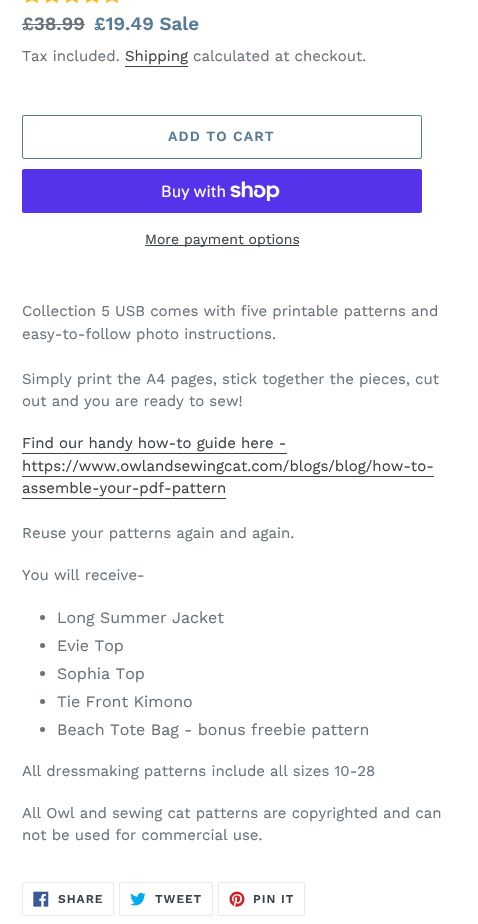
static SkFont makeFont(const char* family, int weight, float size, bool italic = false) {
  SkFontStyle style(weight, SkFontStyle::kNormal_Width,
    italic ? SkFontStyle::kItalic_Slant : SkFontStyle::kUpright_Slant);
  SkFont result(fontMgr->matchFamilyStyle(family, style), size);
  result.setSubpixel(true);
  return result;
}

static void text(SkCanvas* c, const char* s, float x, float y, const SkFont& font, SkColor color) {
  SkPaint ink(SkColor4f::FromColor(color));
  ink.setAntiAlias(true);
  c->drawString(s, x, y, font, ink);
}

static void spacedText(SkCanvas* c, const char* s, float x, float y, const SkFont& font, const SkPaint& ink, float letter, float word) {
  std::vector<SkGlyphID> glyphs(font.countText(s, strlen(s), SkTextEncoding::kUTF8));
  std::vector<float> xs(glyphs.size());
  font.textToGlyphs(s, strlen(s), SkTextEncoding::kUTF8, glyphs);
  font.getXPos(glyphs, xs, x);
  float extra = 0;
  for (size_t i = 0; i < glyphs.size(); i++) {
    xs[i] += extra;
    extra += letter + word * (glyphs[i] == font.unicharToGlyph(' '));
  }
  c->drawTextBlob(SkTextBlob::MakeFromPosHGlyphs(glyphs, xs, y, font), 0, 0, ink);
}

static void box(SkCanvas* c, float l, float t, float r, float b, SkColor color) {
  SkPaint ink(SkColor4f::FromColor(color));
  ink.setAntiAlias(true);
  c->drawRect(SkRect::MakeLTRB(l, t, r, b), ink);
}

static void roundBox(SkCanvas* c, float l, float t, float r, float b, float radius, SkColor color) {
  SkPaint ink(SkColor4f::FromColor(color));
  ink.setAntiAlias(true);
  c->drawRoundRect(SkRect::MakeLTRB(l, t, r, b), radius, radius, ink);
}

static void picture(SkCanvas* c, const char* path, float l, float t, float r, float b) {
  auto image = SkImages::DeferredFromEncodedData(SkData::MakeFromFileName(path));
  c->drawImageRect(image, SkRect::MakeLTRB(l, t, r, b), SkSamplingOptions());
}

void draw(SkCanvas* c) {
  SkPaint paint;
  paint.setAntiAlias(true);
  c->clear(0xffffffff);
  paint.setColor(0xffffb303);
  c->drawPath(SkPathBuilder().moveTo(32, -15).lineTo(35, -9).lineTo(41.5f, -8).lineTo(37, -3.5f).lineTo(38, 3).lineTo(32, 0).lineTo(26, 3).lineTo(27, -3.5f).lineTo(22.5f, -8).lineTo(29, -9).close().moveTo(52, -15).lineTo(55, -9).lineTo(61.5f, -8).lineTo(57, -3.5f).lineTo(58, 3).lineTo(52, 0).lineTo(46, 3).lineTo(47, -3.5f).lineTo(42.5f, -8).lineTo(49, -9).close().moveTo(72, -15).lineTo(75, -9).lineTo(81.5f, -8).lineTo(77, -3.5f).lineTo(78, 3).lineTo(72, 0).lineTo(66, 3).lineTo(67, -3.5f).lineTo(62.5f, -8).lineTo(69, -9).close().detach(), paint);
  c->drawPath(SkPathBuilder().moveTo(92, -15).lineTo(95, -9).lineTo(101.5f, -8).lineTo(97, -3.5f).lineTo(98, 3).lineTo(92, 0).lineTo(86, 3).lineTo(87, -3.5f).lineTo(82.5f, -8).lineTo(89, -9).close().moveTo(112, -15).lineTo(115, -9).lineTo(121.5f, -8).lineTo(117, -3.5f).lineTo(118, 3).lineTo(112, 0).lineTo(106, 3).lineTo(107, -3.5f).lineTo(102.5f, -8).lineTo(109, -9).close().detach(), paint);
  SkFont face1 = makeFont("Work Sans", 600, 18.75f);
  text(c, "£38.99", 22, 30, face1, 0xff69727b);
  box(c, 22, 24, 85, 25, 0xff69727b);
  text(c, "£19.49 Sale", 94, 30, face1, 0xff557b97);
  SkFont face2 = makeFont("Work Sans", 400, 15);
  text(c, "Tax included.", 22, 61, face2, 0xff69727b);
  text(c, "Shipping", 125, 61, face2, 0xff3d4246);
  box(c, 125, 66, 188, 67, 0xff3d4246);
  text(c, "calculated at checkout.", 193, 61, face2, 0xff69727b);
  paint.setStyle(SkPaint::kStroke_Style);
  paint.setStrokeWidth(1);
  paint.setColor(0xff557b97);
  c->drawRoundRect(SkRect::MakeLTRB(22.5f, 115.5f, 421.5f, 158.5f), 1.5f, 1.5f, paint);
  SkFont face3 = makeFont("Work Sans", 600, 14);
  paint.setStyle(SkPaint::kFill_Style);
  spacedText(c, "ADD TO CART", 168, 141, face3, paint, 1.1f, 0);
  roundBox(c, 22, 169, 422, 213, 2, 0xff5433eb);
  SkFont face4 = makeFont("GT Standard", 400, 16);
  text(c, "Buy with", 161, 197, face4, 0xffffffff);
  picture(c, "img_01.png", 230, 181, 280, 201);
  box(c, 145, 245, 299, 246, 0xff3d4246);
  SkFont face5 = makeFont("Work Sans", 400, 14);
  text(c, "More payment options", 145, 244, face5, 0xff3d4246);
  text(c, "Collection 5 USB comes with five printable patterns and", 22, 316, face2, 0xff69727b);
  text(c, "easy-to-follow photo instructions.", 22, 339, face2, 0xff69727b);
  text(c, "Simply print the A4 pages, stick together the pieces, cut", 22, 384, face2, 0xff69727b);
  text(c, "out and you are ready to sew!", 22, 406, face2, 0xff69727b);
  text(c, "Find our handy how-to guide here -", 22, 448, face2, 0xff3d4246);
  box(c, 22, 453, 287, 454, 0xff3d4246);
  text(c, "https://www.owlandsewingcat.com/blogs/blog/how-to-", 22, 471, face2, 0xff3d4246);
  box(c, 22, 476, 434, 477, 0xff3d4246);
  text(c, "assemble-your-pdf-pattern", 22, 493, face2, 0xff3d4246);
  box(c, 22, 498, 226, 499, 0xff3d4246);
  text(c, "Reuse your patterns again and again.", 22, 538, face2, 0xff69727b);
  text(c, "You will receive-", 22, 580, face2, 0xff69727b);
  paint.setColor(0xff69727b);
  c->drawCircle(42.5f, 617.5f, 2.5f, paint);
  SkFont face6 = makeFont("Work Sans", 400, 16);
  text(c, "Long Summer Jacket", 57, 623, face6, 0xff69727b);
  c->drawCircle(42.5f, 645.5f, 2.5f, paint);
  text(c, "Evie Top", 57, 651, face6, 0xff69727b);
  c->drawCircle(42.5f, 673.5f, 2.5f, paint);
  text(c, "Sophia Top", 57, 679, face6, 0xff69727b);
  c->drawCircle(42.5f, 701.5f, 2.5f, paint);
  text(c, "Tie Front Kimono", 57, 707, face6, 0xff69727b);
  c->drawCircle(42.5f, 729.5f, 2.5f, paint);
  text(c, "Beach Tote Bag - bonus freebie pattern", 57, 735, face6, 0xff69727b);
  text(c, "All dressmaking patterns include all sizes 10-28", 22, 776, face2, 0xff69727b);
  text(c, "All Owl and sewing cat patterns are copyrighted and can", 22, 818, face2, 0xff69727b);
  text(c, "not be used for commercial use.", 22, 840, face2, 0xff69727b);
  paint.setStyle(SkPaint::kStroke_Style);
  paint.setColor(0xffe8e9eb);
  c->drawRoundRect(SkRect::MakeLTRB(22.5f, 882.5f, 113.5f, 915.5f), 1.5f, 1.5f, paint);
  picture(c, "img_02.png", 33, 891, 49, 907);
  SkFont face7 = makeFont("Work Sans", 600, 12);
  paint.setStyle(SkPaint::kFill_Style);
  paint.setColor(0xff3d4246);
  spacedText(c, "SHARE", 58, 903, face7, paint, 1, 0);
  paint.setStyle(SkPaint::kStroke_Style);
  paint.setColor(0xffe8e9eb);
  c->drawRoundRect(SkRect::MakeLTRB(119.5f, 882.5f, 212.5f, 915.5f), 1.5f, 1.5f, paint);
  picture(c, "img_03.png", 130, 892, 146, 906);
  paint.setStyle(SkPaint::kFill_Style);
  paint.setColor(0xff3d4246);
  spacedText(c, "TWEET", 155, 903, face7, paint, 1, 0);
  paint.setStyle(SkPaint::kStroke_Style);
  paint.setColor(0xffe8e9eb);
  c->drawRoundRect(SkRect::MakeLTRB(218.5f, 882.5f, 304.5f, 915.5f), 1.5f, 1.5f, paint);
  picture(c, "img_04.png", 229, 891, 245, 907);
  paint.setStyle(SkPaint::kFill_Style);
  paint.setColor(0xff3d4246);
  spacedText(c, "PIN IT", 253, 903, face7, paint, 1, 0);
}
